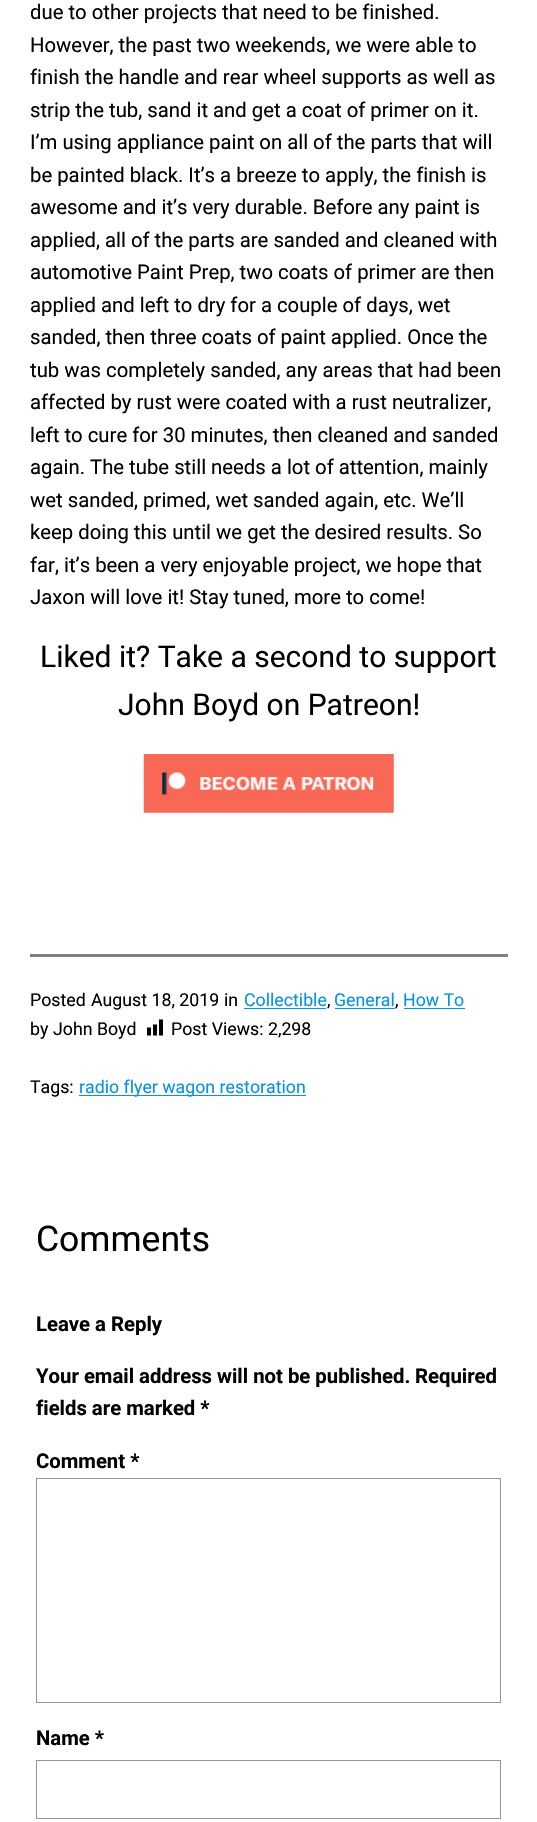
static SkFont makeFont(const char* family, int weight, float size, bool italic = false) {
  SkFontStyle style(weight, SkFontStyle::kNormal_Width,
    italic ? SkFontStyle::kItalic_Slant : SkFontStyle::kUpright_Slant);
  SkFont result(fontMgr->matchFamilyStyle(family, style), size);
  result.setSubpixel(true);
  return result;
}

static void text(SkCanvas* c, const char* s, float x, float y, const SkFont& font, SkColor color) {
  SkPaint ink(SkColor4f::FromColor(color));
  ink.setAntiAlias(true);
  c->drawString(s, x, y, font, ink);
}

static void box(SkCanvas* c, float l, float t, float r, float b, SkColor color) {
  SkPaint ink(SkColor4f::FromColor(color));
  ink.setAntiAlias(true);
  c->drawRect(SkRect::MakeLTRB(l, t, r, b), ink);
}

static void picture(SkCanvas* c, const char* path, float l, float t, float r, float b) {
  auto image = SkImages::DeferredFromEncodedData(SkData::MakeFromFileName(path));
  c->drawImageRect(image, SkRect::MakeLTRB(l, t, r, b), SkSamplingOptions());
}

void draw(SkCanvas* c) {
  SkPaint paint;
  paint.setAntiAlias(true);
  c->clear(0xffffffff);
  SkFont face1 = makeFont("Roboto", 400, 20.3f);
  text(c, "due to other projects that need to be finished.", 30, 19, face1, 0xff000000);
  text(c, "However, the past two weekends, we were able to", 30, 52, face1, 0xff000000);
  text(c, "finish the handle and rear wheel supports as well as", 30, 84, face1, 0xff000000);
  text(c, "strip the tub, sand it and get a coat of primer on it.", 30, 117, face1, 0xff000000);
  text(c, "I’m using appliance paint on all of the parts that will", 30, 149, face1, 0xff000000);
  text(c, "be painted black. It’s a breeze to apply, the finish is", 30, 182, face1, 0xff000000);
  text(c, "awesome and it’s very durable. Before any paint is", 30, 214, face1, 0xff000000);
  text(c, "applied, all of the parts are sanded and cleaned with", 30, 247, face1, 0xff000000);
  text(c, "automotive Paint Prep, two coats of primer are then", 30, 279, face1, 0xff000000);
  text(c, "applied and left to dry for a couple of days, wet", 30, 312, face1, 0xff000000);
  text(c, "sanded, then three coats of paint applied. Once the", 30, 344, face1, 0xff000000);
  text(c, "tub was completely sanded, any areas that had been", 30, 377, face1, 0xff000000);
  text(c, "affected by rust were coated with a rust neutralizer,", 30, 409, face1, 0xff000000);
  text(c, "left to cure for 30 minutes, then cleaned and sanded", 30, 442, face1, 0xff000000);
  text(c, "again. The tube still needs a lot of attention, mainly", 30, 474, face1, 0xff000000);
  text(c, "wet sanded, primed, wet sanded again, etc. We’ll", 30, 507, face1, 0xff000000);
  text(c, "keep doing this until we get the desired results. So", 30, 539, face1, 0xff000000);
  text(c, "far, it’s been a very enjoyable project, we hope that", 30, 572, face1, 0xff000000);
  text(c, "Jaxon will love it! Stay tuned, more to come!", 30, 604, face1, 0xff000000);
  SkFont face2 = makeFont("Roboto", 400, 30);
  text(c, "Liked it? Take a second to support", 40, 667, face2, 0xff000000);
  text(c, "John Boyd on Patreon!", 118, 715, face2, 0xff000000);
  picture(c, "img_01.png", 143, 754, 394, 813);
  box(c, 30, 954, 508, 957, 0xff808080);
  SkFont face3 = makeFont("Roboto", 400, 17.75f);
  text(c, "Posted", 30, 1006, face3, 0xff000000);
  text(c, "August 18, 2019", 91, 1006, face3, 0xff000000);
  text(c, "in", 224, 1006, face3, 0xff000000);
  text(c, "Collectible", 244, 1006, face3, 0xff0693e3);
  box(c, 244, 1008, 326, 1009, 0xff0693e3);
  text(c, ",", 327, 1006, face3, 0xff000000);
  text(c, "General", 334, 1006, face3, 0xff0693e3);
  box(c, 335, 1008, 395, 1009, 0xff0693e3);
  text(c, ",", 395, 1006, face3, 0xff000000);
  text(c, "How To", 403, 1006, face3, 0xff0693e3);
  box(c, 404, 1008, 465, 1009, 0xff0693e3);
  text(c, "by", 30, 1035, face3, 0xff000000);
  text(c, "John Boyd", 53, 1035, face3, 0xff000000);
  picture(c, "img_02.png", 147, 1019, 163, 1036);
  text(c, "Post Views: 2,298", 171, 1035, face3, 0xff000000);
  text(c, "Tags:", 30, 1093, face3, 0xff000000);
  box(c, 79, 1095, 306, 1096, 0xff0693e3);
  text(c, "radio flyer wagon restoration", 79, 1093, face3, 0xff0693e3);
  SkFont face4 = makeFont("Roboto", 400, 35.5f);
  text(c, "Comments", 36, 1251, face4, 0xff000000);
  SkFont face5 = makeFont("Roboto", 700, 20.3f);
  text(c, "Leave a Reply", 36, 1331, face5, 0xff000000);
  text(c, "Your email address will not be published.", 36, 1383, face5, 0xff000000);
  text(c, "Required", 415, 1383, face5, 0xff000000);
  text(c, "fields are marked *", 36, 1415, face5, 0xff000000);
  text(c, "Comment *", 36, 1468, face5, 0xff000000);
  paint.setStyle(SkPaint::kStroke_Style);
  paint.setStrokeWidth(1);
  paint.setColor(0xff949494);
  c->drawRect(SkRect::MakeLTRB(36.5f, 1478.5f, 500.5f, 1702.5f), paint);
  text(c, "Name *", 36, 1745, face5, 0xff000000);
  c->drawRect(SkRect::MakeLTRB(36.5f, 1760.5f, 500.5f, 1818.5f), paint);
}
